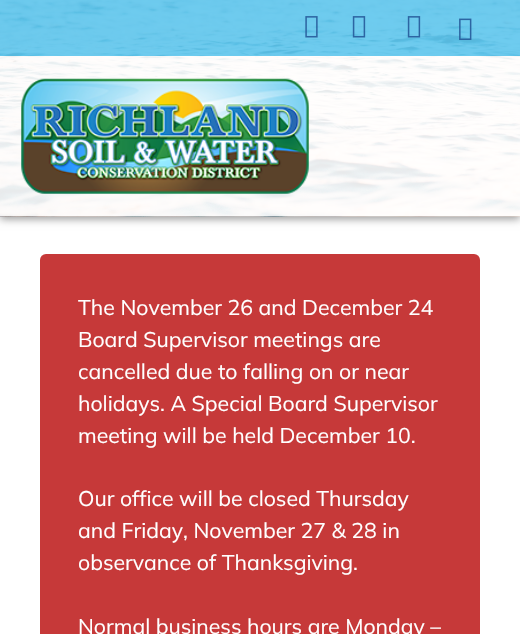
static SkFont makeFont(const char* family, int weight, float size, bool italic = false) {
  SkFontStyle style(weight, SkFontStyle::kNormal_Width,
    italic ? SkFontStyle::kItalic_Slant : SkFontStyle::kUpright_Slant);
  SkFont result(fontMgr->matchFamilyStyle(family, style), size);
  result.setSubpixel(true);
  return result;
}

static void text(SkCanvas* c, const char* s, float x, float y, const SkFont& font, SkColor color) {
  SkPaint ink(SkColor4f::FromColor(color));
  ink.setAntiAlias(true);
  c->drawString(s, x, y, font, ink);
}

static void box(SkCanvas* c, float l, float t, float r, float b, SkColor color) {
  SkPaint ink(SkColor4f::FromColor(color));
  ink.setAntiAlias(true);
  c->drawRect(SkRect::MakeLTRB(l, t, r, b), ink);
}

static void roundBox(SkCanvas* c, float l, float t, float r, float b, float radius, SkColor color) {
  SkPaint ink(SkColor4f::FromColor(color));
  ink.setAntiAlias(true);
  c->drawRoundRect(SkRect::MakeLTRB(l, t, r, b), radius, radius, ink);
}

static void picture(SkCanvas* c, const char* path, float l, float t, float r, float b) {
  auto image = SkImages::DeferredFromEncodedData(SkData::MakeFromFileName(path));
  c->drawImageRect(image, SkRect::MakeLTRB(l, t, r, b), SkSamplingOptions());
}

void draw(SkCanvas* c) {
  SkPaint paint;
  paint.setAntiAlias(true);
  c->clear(0xffffffff);
  paint.setColor(0x66000000);
  paint.setMaskFilter(SkMaskFilter::MakeBlur(kNormal_SkBlurStyle, 4));
  c->drawRect(SkRect::MakeLTRB(0, 3, 520, 219), paint);
  paint.setMaskFilter(nullptr);
  picture(c, "img_01.png", 0, 0, 520, 217);
  box(c, 0, 0, 520, 56, 0xe65ec8f0);
  picture(c, "img_02.png", 305, 16, 318, 38);
  picture(c, "img_03.png", 352, 16, 366, 38);
  picture(c, "img_04.png", 407, 16, 421, 38);
  picture(c, "img_05.png", 459, 18, 472, 40);
  box(c, 0, 56, 520, 216, 0xe6ffffff);
  picture(c, "img_06.png", 21, 78, 309, 194);
  roundBox(c, 40, 254, 480, 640, 6, 0xffc63939);
  SkFont face1 = makeFont("Mulish", 400, 21.25f);
  text(c, "The November 26 and December 24", 78, 315, face1, 0xffffffff);
  text(c, "Board Supervisor meetings are", 78, 347, face1, 0xffffffff);
  text(c, "cancelled due to falling on or near", 78, 379, face1, 0xffffffff);
  text(c, "holidays. A Special Board Supervisor", 78, 411, face1, 0xffffffff);
  text(c, "meeting will be held December 10.", 78, 443, face1, 0xffffffff);
  text(c, "Our office will be closed Thursday", 78, 506, face1, 0xffffffff);
  text(c, "and Friday, November 27 & 28 in", 78, 538, face1, 0xffffffff);
  text(c, "observance of Thanksgiving.", 78, 570, face1, 0xffffffff);
  text(c, "Normal business hours are Monday –", 78, 634, face1, 0xffffffff);
}
